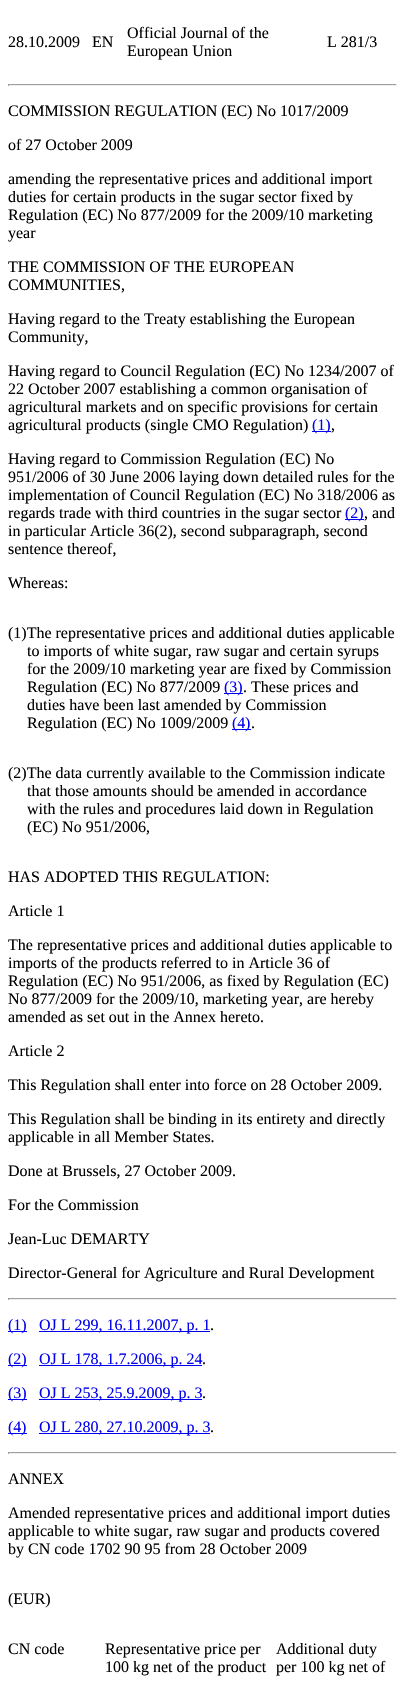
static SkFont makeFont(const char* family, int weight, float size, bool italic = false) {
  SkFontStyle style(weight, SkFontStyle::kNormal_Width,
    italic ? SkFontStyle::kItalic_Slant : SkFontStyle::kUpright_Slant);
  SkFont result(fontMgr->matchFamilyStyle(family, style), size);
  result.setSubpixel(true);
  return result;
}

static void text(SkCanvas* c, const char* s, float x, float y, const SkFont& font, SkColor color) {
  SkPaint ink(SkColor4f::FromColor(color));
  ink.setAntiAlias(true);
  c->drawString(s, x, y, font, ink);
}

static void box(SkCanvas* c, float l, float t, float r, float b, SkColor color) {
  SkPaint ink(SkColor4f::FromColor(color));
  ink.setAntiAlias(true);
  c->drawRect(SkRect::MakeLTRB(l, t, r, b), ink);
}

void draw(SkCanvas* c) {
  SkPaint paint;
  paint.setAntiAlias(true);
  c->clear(0xffffffff);
  SkFont face1 = makeFont("Liberation Serif", 400, 16);
  text(c, "28.10.2009", 8, 47, face1, 0xff000000);
  text(c, "EN", 92, 47, face1, 0xff000000);
  text(c, "Official Journal of the", 127, 38, face1, 0xff000000);
  text(c, "European Union", 127, 56, face1, 0xff000000);
  text(c, "L 281/3", 327, 47, face1, 0xff000000);
  box(c, 8, 84, 397, 85, 0xff9f9f9f);
  box(c, 396, 84, 397, 86, 0xffeeeeee);
  box(c, 8, 85, 397, 86, 0xffeeeeee);
  box(c, 8, 84, 9, 86, 0xff9f9f9f);
  text(c, "COMMISSION REGULATION (EC) No 1017/2009", 8, 116, face1, 0xff000000);
  text(c, "of 27 October 2009", 8, 150, face1, 0xff000000);
  text(c, "amending the representative prices and additional import", 8, 184, face1, 0xff000000);
  text(c, "duties for certain products in the sugar sector fixed by", 8, 202, face1, 0xff000000);
  text(c, "Regulation (EC) No 877/2009 for the 2009/10 marketing", 8, 220, face1, 0xff000000);
  text(c, "year", 8, 238, face1, 0xff000000);
  text(c, "THE COMMISSION OF THE EUROPEAN", 8, 272, face1, 0xff000000);
  text(c, "COMMUNITIES,", 8, 290, face1, 0xff000000);
  text(c, "Having regard to the Treaty establishing the European", 8, 324, face1, 0xff000000);
  text(c, "Community,", 8, 342, face1, 0xff000000);
  text(c, "Having regard to Council Regulation (EC) No 1234/2007 of", 8, 376, face1, 0xff000000);
  text(c, "22 October 2007 establishing a common organisation of", 8, 394, face1, 0xff000000);
  text(c, "agricultural markets and on specific provisions for certain", 8, 412, face1, 0xff000000);
  text(c, "agricultural products (single CMO Regulation)", 8, 430, face1, 0xff000000);
  box(c, 312, 431, 331, 432, 0xff0000ee);
  text(c, "(1)", 312, 430, face1, 0xff0000ee);
  text(c, ",", 331, 430, face1, 0xff000000);
  text(c, "Having regard to Commission Regulation (EC) No", 8, 464, face1, 0xff000000);
  text(c, "951/2006 of 30 June 2006 laying down detailed rules for the", 8, 482, face1, 0xff000000);
  text(c, "implementation of Council Regulation (EC) No 318/2006 as", 8, 500, face1, 0xff000000);
  text(c, "regards trade with third countries in the sugar sector", 8, 518, face1, 0xff000000);
  box(c, 345, 519, 364, 520, 0xff0000ee);
  text(c, "(2)", 345, 518, face1, 0xff0000ee);
  text(c, ", and", 364, 518, face1, 0xff000000);
  text(c, "in particular Article 36(2), second subparagraph, second", 8, 536, face1, 0xff000000);
  text(c, "sentence thereof,", 8, 554, face1, 0xff000000);
  text(c, "Whereas:", 8, 588, face1, 0xff000000);
  text(c, "(1)The representative prices and additional duties applicable", 8, 638, face1, 0xff000000);
  text(c, "to imports of white sugar, raw sugar and certain syrups", 27, 656, face1, 0xff000000);
  text(c, "for the 2009/10 marketing year are fixed by Commission", 27, 674, face1, 0xff000000);
  text(c, "Regulation (EC) No 877/2009", 27, 692, face1, 0xff000000);
  box(c, 224, 693, 243, 694, 0xff0000ee);
  text(c, "(3)", 224, 692, face1, 0xff0000ee);
  text(c, ". These prices and", 243, 692, face1, 0xff000000);
  text(c, "duties have been last amended by Commission", 27, 710, face1, 0xff000000);
  text(c, "Regulation (EC) No 1009/2009", 27, 728, face1, 0xff000000);
  box(c, 232, 729, 245, 730, 0xff0000ee);
  text(c, "(4", 232, 728, face1, 0xff0000ee);
  box(c, 245, 729, 251, 730, 0xff0000ee);
  text(c, ")", 245, 728, face1, 0xff0000ee);
  text(c, ".", 251, 728, face1, 0xff000000);
  text(c, "(2)The data currently available to the Commission indicate", 8, 778, face1, 0xff000000);
  text(c, "that those amounts should be amended in accordance", 27, 796, face1, 0xff000000);
  text(c, "with the rules and procedures laid down in Regulation", 27, 814, face1, 0xff000000);
  text(c, "(EC) No 951/2006,", 27, 832, face1, 0xff000000);
  text(c, "HAS ADOPTED THIS REGULATION:", 8, 882, face1, 0xff000000);
  text(c, "Article 1", 8, 916, face1, 0xff000000);
  text(c, "The representative prices and additional duties applicable to", 8, 950, face1, 0xff000000);
  text(c, "imports of the products referred to in Article 36 of", 8, 968, face1, 0xff000000);
  text(c, "Regulation (EC) No 951/2006, as fixed by Regulation (EC)", 8, 986, face1, 0xff000000);
  text(c, "No 877/2009 for the 2009/10, marketing year, are hereby", 8, 1004, face1, 0xff000000);
  text(c, "amended as set out in the Annex hereto.", 8, 1022, face1, 0xff000000);
  text(c, "Article 2", 8, 1056, face1, 0xff000000);
  text(c, "This Regulation shall enter into force on 28 October 2009.", 8, 1090, face1, 0xff000000);
  text(c, "This Regulation shall be binding in its entirety and directly", 8, 1124, face1, 0xff000000);
  text(c, "applicable in all Member States.", 8, 1142, face1, 0xff000000);
  text(c, "Done at Brussels, 27 October 2009.", 8, 1176, face1, 0xff000000);
  text(c, "For the Commission", 8, 1210, face1, 0xff000000);
  text(c, "Jean-Luc DEMARTY", 8, 1244, face1, 0xff000000);
  text(c, "Director-General for Agriculture and Rural Development", 8, 1278, face1, 0xff000000);
  box(c, 8, 1298, 397, 1299, 0xff9f9f9f);
  box(c, 396, 1298, 397, 1300, 0xffeeeeee);
  box(c, 8, 1299, 397, 1300, 0xffeeeeee);
  box(c, 8, 1298, 9, 1300, 0xff9f9f9f);
  box(c, 8, 1331, 27, 1332, 0xff0000ee);
  text(c, "(1)", 8, 1330, face1, 0xff0000ee);
  box(c, 39, 1331, 210, 1332, 0xff0000ee);
  text(c, "OJ L 299, 16.11.2007, p. 1", 39, 1330, face1, 0xff0000ee);
  text(c, ".", 210, 1330, face1, 0xff000000);
  box(c, 8, 1365, 27, 1366, 0xff0000ee);
  text(c, "(2)", 8, 1364, face1, 0xff0000ee);
  box(c, 39, 1365, 202, 1366, 0xff0000ee);
  text(c, "OJ L 178, 1.7.2006, p. 24", 39, 1364, face1, 0xff0000ee);
  text(c, ".", 202, 1364, face1, 0xff000000);
  box(c, 8, 1399, 27, 1400, 0xff0000ee);
  text(c, "(3)", 8, 1398, face1, 0xff0000ee);
  box(c, 39, 1399, 202, 1400, 0xff0000ee);
  text(c, "OJ L 253, 25.9.2009, p. 3", 39, 1398, face1, 0xff0000ee);
  text(c, ".", 202, 1398, face1, 0xff000000);
  box(c, 8, 1433, 21, 1434, 0xff0000ee);
  text(c, "(4", 8, 1432, face1, 0xff0000ee);
  box(c, 21, 1433, 27, 1434, 0xff0000ee);
  text(c, ")", 21, 1432, face1, 0xff0000ee);
  box(c, 39, 1433, 210, 1434, 0xff0000ee);
  text(c, "OJ L 280, 27.10.2009, p. 3", 39, 1432, face1, 0xff0000ee);
  text(c, ".", 210, 1432, face1, 0xff000000);
  box(c, 8, 1452, 397, 1453, 0xff9f9f9f);
  box(c, 396, 1452, 397, 1454, 0xffeeeeee);
  box(c, 8, 1453, 397, 1454, 0xffeeeeee);
  box(c, 8, 1452, 9, 1454, 0xff9f9f9f);
  text(c, "ANNEX", 8, 1484, face1, 0xff000000);
  text(c, "Amended representative prices and additional import duties", 8, 1518, face1, 0xff000000);
  text(c, "applicable to white sugar, raw sugar and products covered", 8, 1536, face1, 0xff000000);
  text(c, "by CN code 1702 90 95 from 28 October 2009", 8, 1554, face1, 0xff000000);
  text(c, "(EUR)", 8, 1604, face1, 0xff000000);
  text(c, "CN code", 8, 1654, face1, 0xff000000);
  text(c, "Representative price per", 105, 1654, face1, 0xff000000);
  text(c, "100 kg net of the product", 105, 1672, face1, 0xff000000);
  text(c, "Additional duty", 276, 1654, face1, 0xff000000);
  text(c, "per 100 kg net of", 276, 1672, face1, 0xff000000);
}
